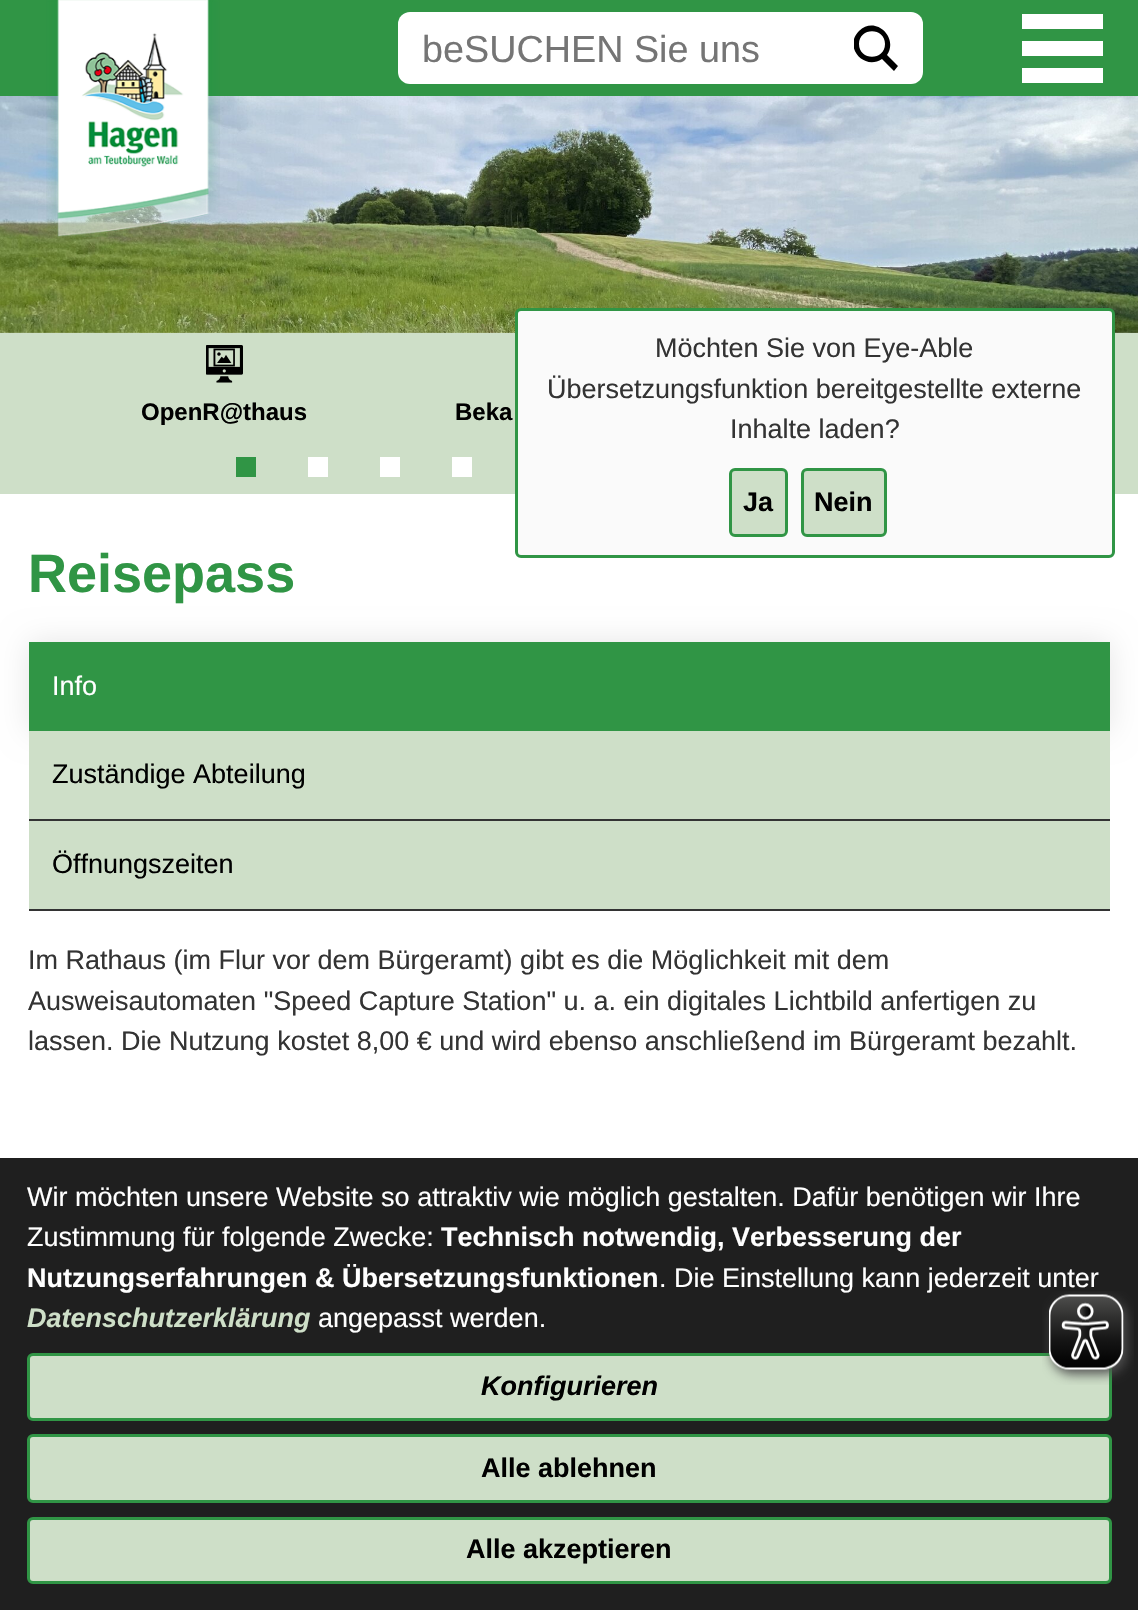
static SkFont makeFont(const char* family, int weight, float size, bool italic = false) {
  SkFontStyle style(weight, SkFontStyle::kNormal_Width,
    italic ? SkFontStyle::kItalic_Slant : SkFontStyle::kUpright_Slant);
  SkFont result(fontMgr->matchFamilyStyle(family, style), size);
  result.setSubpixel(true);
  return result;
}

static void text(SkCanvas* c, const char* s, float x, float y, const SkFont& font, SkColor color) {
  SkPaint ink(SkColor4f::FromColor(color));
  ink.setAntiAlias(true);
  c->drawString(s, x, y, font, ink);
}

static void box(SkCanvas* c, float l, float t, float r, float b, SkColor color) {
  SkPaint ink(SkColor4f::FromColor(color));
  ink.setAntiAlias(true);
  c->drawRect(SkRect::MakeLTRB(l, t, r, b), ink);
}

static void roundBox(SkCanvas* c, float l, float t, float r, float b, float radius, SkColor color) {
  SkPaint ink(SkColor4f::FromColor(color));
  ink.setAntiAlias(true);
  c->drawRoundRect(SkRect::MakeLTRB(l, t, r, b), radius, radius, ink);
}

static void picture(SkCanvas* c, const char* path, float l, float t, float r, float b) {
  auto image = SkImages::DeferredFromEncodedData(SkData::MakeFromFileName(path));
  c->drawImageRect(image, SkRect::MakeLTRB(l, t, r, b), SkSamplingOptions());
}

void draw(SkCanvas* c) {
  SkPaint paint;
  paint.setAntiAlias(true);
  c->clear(0xffffffff);
  box(c, 0, 0, 1138, 96, 0xff309545);
  box(c, 1022, 41, 1103, 56, 0xffffffff);
  box(c, 1022, 14, 1103, 29, 0xffffffff);
  box(c, 1022, 68, 1103, 83, 0xffffffff);
  picture(c, "img_02.png", 0, 96, 1138, 333);
  picture(c, "img_01.png", 46, 0, 220, 237);
  roundBox(c, 398, 12, 923, 84, 12, 0xffffffff);
  SkFont face1 = makeFont("Liberation Sans", 400, 37.75f);
  text(c, "beSUCHEN Sie uns", 422, 62, face1, 0xff757575);
  c->save();
  c->clipRect(SkRect::MakeLTRB(854, 12, 899, 84));
  paint.setColor(0xff000000);
  c->drawPath(SkPathBuilder().moveTo(898, 66).lineTo(887, 55).cubicTo(899, 37, 875, 15, 859, 31).cubicTo(843, 47, 864, 71, 882, 59).lineTo(894, 71).close().moveTo(859, 44).cubicTo(859, 27, 885, 27, 885, 44).cubicTo(885, 61, 859, 61, 859, 44).close().detach(), paint);
  c->restore();
  box(c, 0, 333, 1138, 494, 0xffcedfc8);
  picture(c, "img_03.png", 206, 345, 243, 383);
  SkFont face2 = makeFont("Liberation Sans", 700, 24);
  text(c, "OpenR@thaus", 141, 420, face2, 0xff000000);
  text(c, "Beka", 455, 420, face2, 0xff000000);
  box(c, 236, 457, 256, 477, 0xff309545);
  box(c, 308, 457, 328, 477, 0xffffffff);
  box(c, 380, 457, 400, 477, 0xffffffff);
  box(c, 452, 457, 472, 477, 0xffffffff);
  SkFont face3 = makeFont("Liberation Sans", 700, 54);
  text(c, "Reisepass", 28, 592, face3, 0xff309545);
  paint.setColor(0x1a000000);
  paint.setMaskFilter(SkMaskFilter::MakeBlur(kNormal_SkBlurStyle, 15));
  c->drawRect(SkRect::MakeLTRB(29, 642, 1110, 731), paint);
  paint.setMaskFilter(nullptr);
  box(c, 29, 642, 1110, 731, 0xff309545);
  SkFont face4 = makeFont("Liberation Sans", 400, 27);
  text(c, "Info", 52, 695, face4, 0xffffffff);
  box(c, 29, 731, 1110, 819, 0xffcedfc8);
  box(c, 29, 819, 1110, 821, 0xff333333);
  text(c, "Zuständige Abteilung", 52, 783, face4, 0xff000000);
  box(c, 29, 821, 1110, 909, 0xffcedfc8);
  box(c, 29, 909, 1110, 911, 0xff333333);
  text(c, "Öffnungszeiten", 52, 873, face4, 0xff000000);
  text(c, "Im Rathaus (im Flur vor dem Bürgeramt) gibt es die Möglichkeit mit dem", 28, 969, face4, 0xff333333);
  text(c, "Ausweisautomaten \"Speed Capture Station\" u. a. ein digitales Lichtbild anfertigen zu", 28, 1010, face4, 0xff333333);
  text(c, "lassen. Die Nutzung kostet 8,00 € und wird ebenso anschließend im Bürgeramt bezahlt.", 28, 1050, face4, 0xff333333);
  paint.setColor(0xfffafafa);
  c->drawRoundRect(SkRect::MakeLTRB(516.5f, 309.5f, 1113.5f, 556.5f), 4.5f, 4.5f, paint);
  paint.setStyle(SkPaint::kStroke_Style);
  paint.setStrokeWidth(3);
  paint.setColor(0xff309545);
  c->drawRoundRect(SkRect::MakeLTRB(516.5f, 309.5f, 1113.5f, 556.5f), 4.5f, 4.5f, paint);
  text(c, "Möchten Sie von Eye-Able", 655, 357, face4, 0xff333333);
  text(c, "Übersetzungsfunktion bereitgestellte externe", 547, 398, face4, 0xff333333);
  text(c, "Inhalte laden?", 730, 438, face4, 0xff333333);
  paint.setStyle(SkPaint::kFill_Style);
  paint.setColor(0xffcedfc8);
  c->drawRoundRect(SkRect::MakeLTRB(730.5f, 469.5f, 786.5f, 535.5f), 4.5f, 4.5f, paint);
  paint.setStyle(SkPaint::kStroke_Style);
  paint.setColor(0xff309545);
  c->drawRoundRect(SkRect::MakeLTRB(730.5f, 469.5f, 786.5f, 535.5f), 4.5f, 4.5f, paint);
  SkFont face5 = makeFont("Liberation Sans", 700, 27);
  text(c, "Ja", 743, 511, face5, 0xff000000);
  paint.setStyle(SkPaint::kFill_Style);
  paint.setColor(0xffcedfc8);
  c->drawRoundRect(SkRect::MakeLTRB(802.5f, 469.5f, 885.5f, 535.5f), 4.5f, 4.5f, paint);
  paint.setStyle(SkPaint::kStroke_Style);
  paint.setColor(0xff309545);
  c->drawRoundRect(SkRect::MakeLTRB(802.5f, 469.5f, 885.5f, 535.5f), 4.5f, 4.5f, paint);
  text(c, "Nein", 814, 511, face5, 0xff000000);
  box(c, 0, 1158, 1138, 1610, 0xff1f1f1f);
  text(c, "Wir möchten unsere Website so attraktiv wie möglich gestalten. Dafür benötigen wir Ihre", 27, 1206, face4, 0xffffffff);
  text(c, "Zustimmung für folgende Zwecke:", 27, 1246, face4, 0xffffffff);
  text(c, "Technisch notwendig, Verbesserung der", 441, 1246, face5, 0xffffffff);
  text(c, "Nutzungserfahrungen & Übersetzungsfunktionen", 27, 1287, face5, 0xffffffff);
  text(c, ". Die Einstellung kann jederzeit unter", 659, 1287, face4, 0xffffffff);
  SkFont face6 = makeFont("Liberation Sans", 700, 27, true);
  text(c, "Datenschutzerklärung", 27, 1327, face6, 0xffcedfc8);
  text(c, "angepasst werden.", 318, 1327, face4, 0xffffffff);
  paint.setStyle(SkPaint::kFill_Style);
  paint.setColor(0xffcedfc8);
  c->drawRoundRect(SkRect::MakeLTRB(28.5f, 1354.5f, 1110.5f, 1419.5f), 4.5f, 4.5f, paint);
  paint.setStyle(SkPaint::kStroke_Style);
  paint.setColor(0xff309545);
  c->drawRoundRect(SkRect::MakeLTRB(28.5f, 1354.5f, 1110.5f, 1419.5f), 4.5f, 4.5f, paint);
  text(c, "Konfigurieren", 481, 1395, face6, 0xff000000);
  paint.setStyle(SkPaint::kFill_Style);
  paint.setColor(0xffcedfc8);
  c->drawRoundRect(SkRect::MakeLTRB(28.5f, 1435.5f, 1110.5f, 1501.5f), 4.5f, 4.5f, paint);
  paint.setStyle(SkPaint::kStroke_Style);
  paint.setColor(0xff309545);
  c->drawRoundRect(SkRect::MakeLTRB(28.5f, 1435.5f, 1110.5f, 1501.5f), 4.5f, 4.5f, paint);
  text(c, "Alle ablehnen", 481, 1477, face5, 0xff000000);
  paint.setStyle(SkPaint::kFill_Style);
  paint.setColor(0xffcedfc8);
  c->drawRoundRect(SkRect::MakeLTRB(28.5f, 1518.5f, 1110.5f, 1582.5f), 4.5f, 4.5f, paint);
  paint.setStyle(SkPaint::kStroke_Style);
  paint.setColor(0xff309545);
  c->drawRoundRect(SkRect::MakeLTRB(28.5f, 1518.5f, 1110.5f, 1582.5f), 4.5f, 4.5f, paint);
  text(c, "Alle akzeptieren", 466, 1558, face5, 0xff000000);
  picture(c, "img_04.png", 1042, 1291, 1134, 1385);
}
